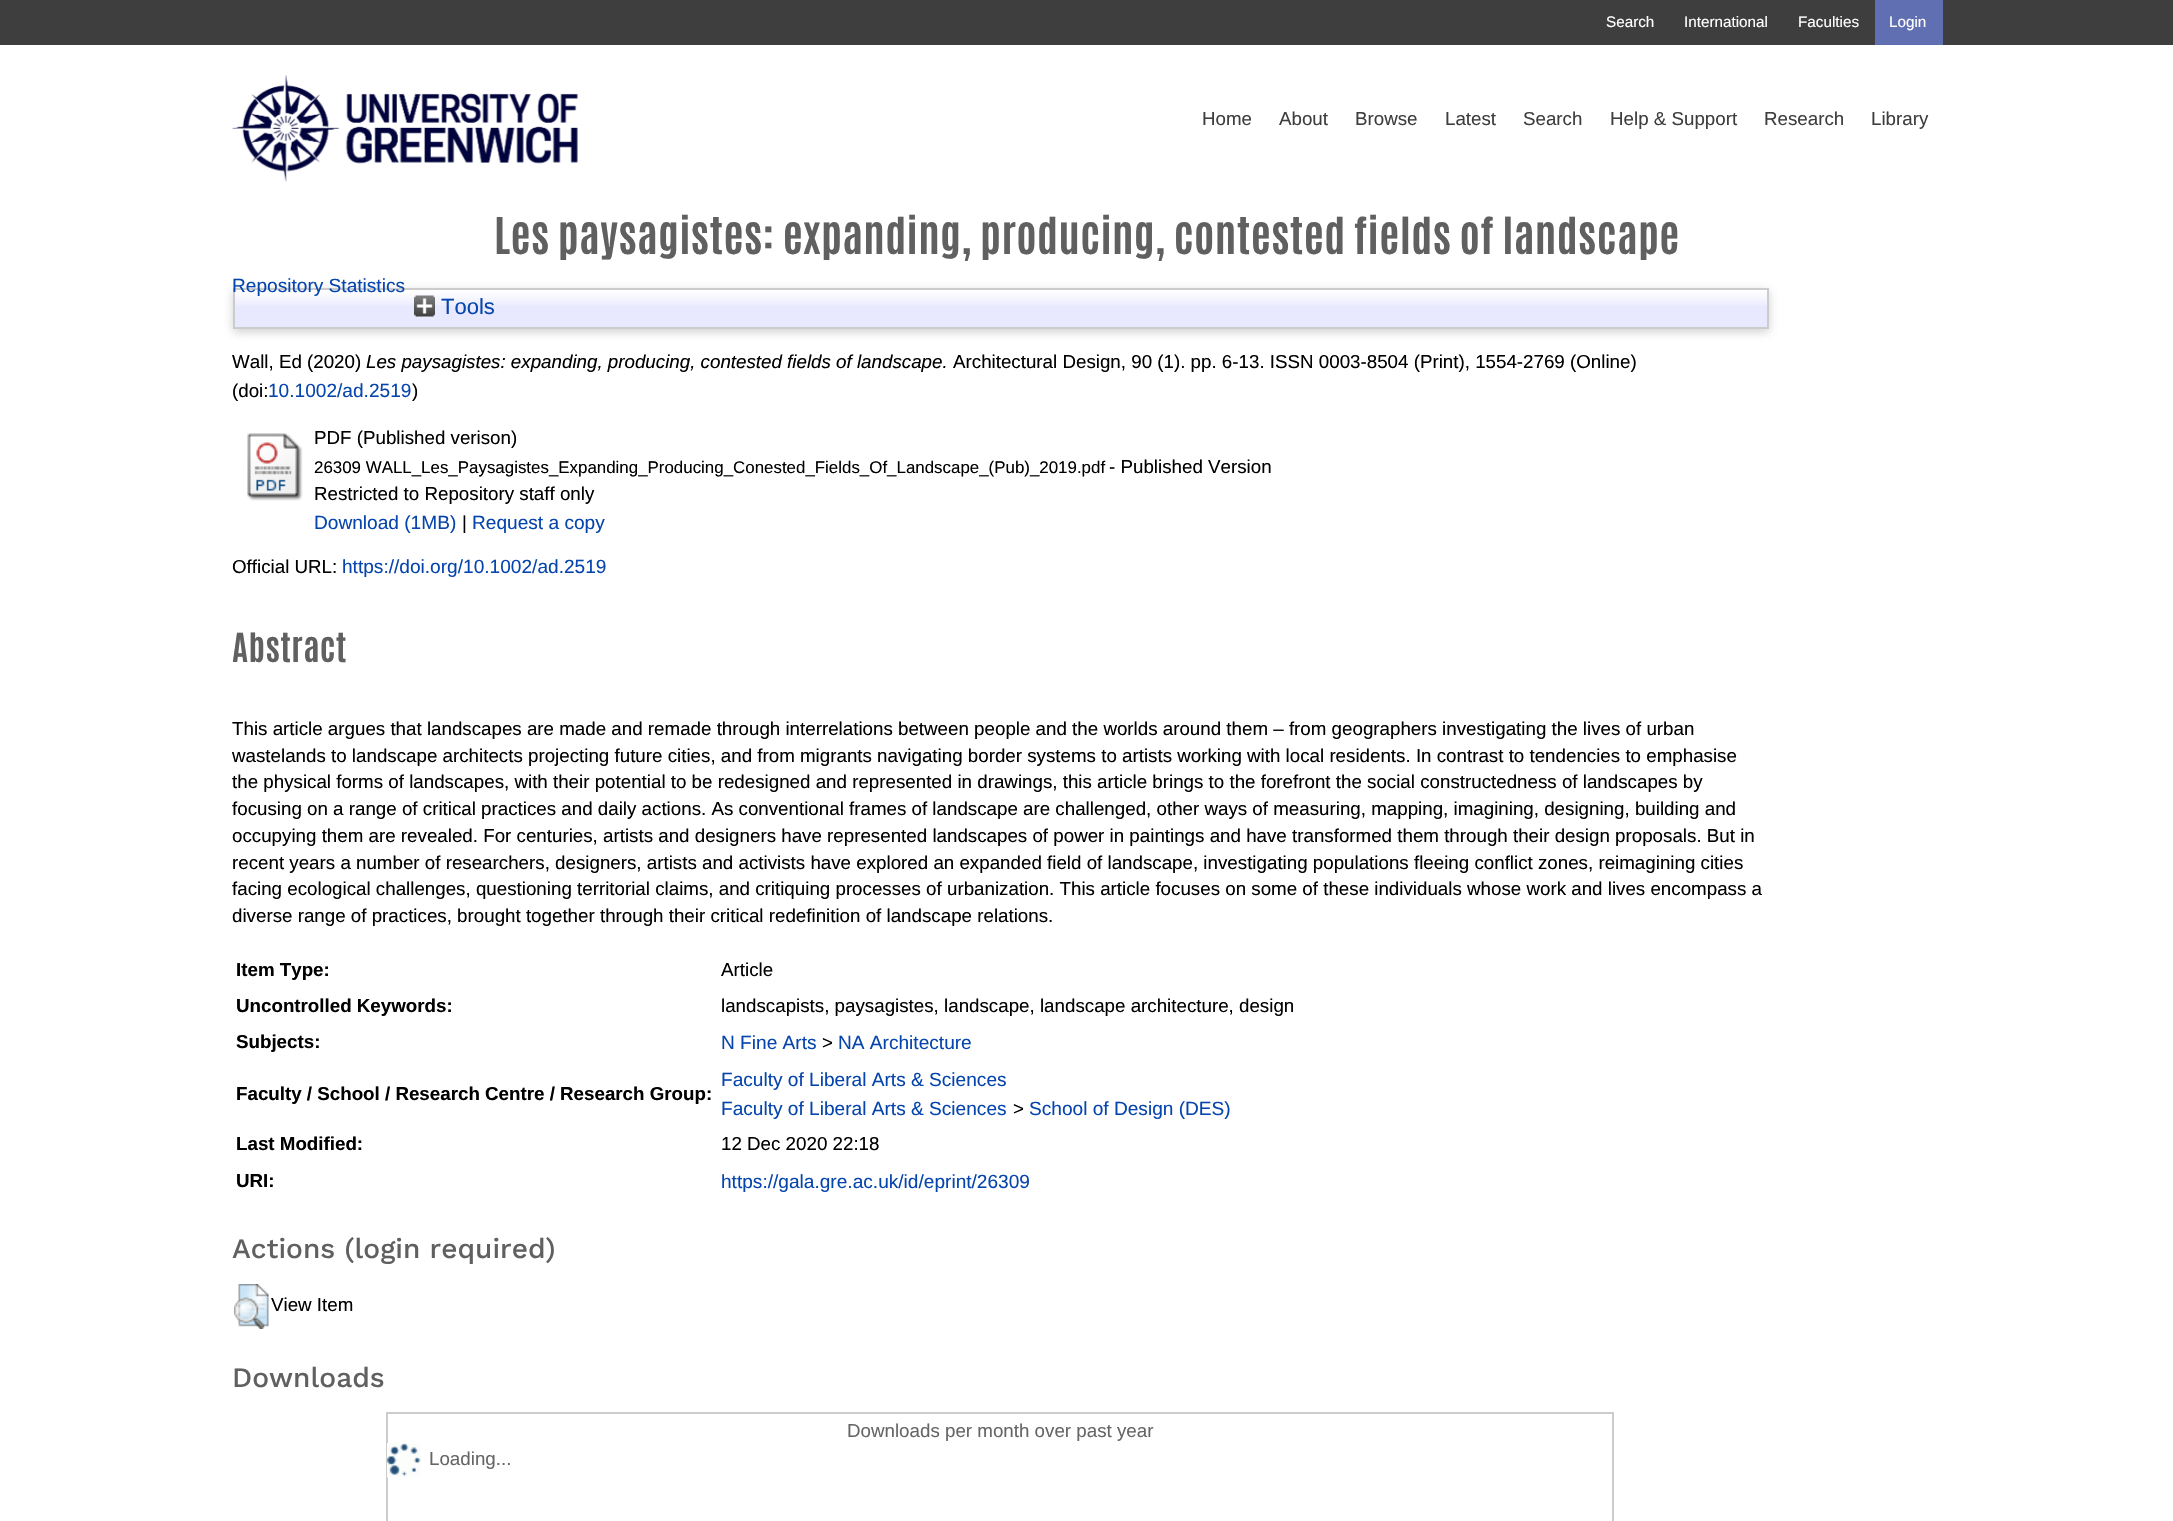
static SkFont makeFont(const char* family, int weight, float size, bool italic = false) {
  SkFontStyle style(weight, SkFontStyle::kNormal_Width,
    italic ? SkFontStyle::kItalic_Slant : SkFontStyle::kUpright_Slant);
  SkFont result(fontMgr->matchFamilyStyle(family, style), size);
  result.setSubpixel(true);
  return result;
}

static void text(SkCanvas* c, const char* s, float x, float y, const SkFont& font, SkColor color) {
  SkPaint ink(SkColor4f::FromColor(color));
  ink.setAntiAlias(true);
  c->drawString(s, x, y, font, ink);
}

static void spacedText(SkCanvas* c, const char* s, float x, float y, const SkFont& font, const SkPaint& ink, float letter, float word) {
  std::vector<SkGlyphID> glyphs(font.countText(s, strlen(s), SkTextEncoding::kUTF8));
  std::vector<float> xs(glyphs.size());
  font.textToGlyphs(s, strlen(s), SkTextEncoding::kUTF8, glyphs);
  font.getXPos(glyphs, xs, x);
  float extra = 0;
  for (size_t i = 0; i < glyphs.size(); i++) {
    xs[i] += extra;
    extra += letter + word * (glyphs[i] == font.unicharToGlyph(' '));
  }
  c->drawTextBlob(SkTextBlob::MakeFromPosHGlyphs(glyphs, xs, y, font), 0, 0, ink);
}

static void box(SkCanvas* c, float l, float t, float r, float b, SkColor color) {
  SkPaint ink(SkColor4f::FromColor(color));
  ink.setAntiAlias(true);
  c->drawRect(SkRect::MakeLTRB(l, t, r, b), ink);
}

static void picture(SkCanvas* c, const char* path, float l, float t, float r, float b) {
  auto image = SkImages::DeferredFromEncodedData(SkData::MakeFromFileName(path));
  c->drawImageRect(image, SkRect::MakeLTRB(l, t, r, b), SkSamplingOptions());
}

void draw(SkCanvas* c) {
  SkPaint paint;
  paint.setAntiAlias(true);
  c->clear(0xffffffff);
  box(c, 0, 0, 2173, 45, 0xff3e3e3e);
  SkFont face1 = makeFont("Liberation Sans", 400, 15.25f);
  text(c, "Search", 1606, 27, face1, 0xffffffff);
  text(c, "International", 1684, 27, face1, 0xffffffff);
  text(c, "Faculties", 1798, 27, face1, 0xffffffff);
  box(c, 1875, 0, 1943, 45, 0xff606eb2);
  text(c, "Login", 1889, 27, face1, 0xffffffff);
  picture(c, "img_01.png", 232, 75, 578, 182);
  SkFont face2 = makeFont("Liberation Sans", 400, 18.75f);
  text(c, "Home", 1202, 125, face2, 0xff3e3e3e);
  text(c, "About", 1279, 125, face2, 0xff3e3e3e);
  text(c, "Browse", 1355, 125, face2, 0xff3e3e3e);
  text(c, "Latest", 1445, 125, face2, 0xff3e3e3e);
  text(c, "Search", 1523, 125, face2, 0xff3e3e3e);
  text(c, "Help & Support", 1610, 125, face2, 0xff3e3e3e);
  text(c, "Research", 1764, 125, face2, 0xff3e3e3e);
  text(c, "Library", 1871, 125, face2, 0xff3e3e3e);
  SkFont face3 = makeFont("Antonio", 700, 43.1f);
  paint.setColor(0xff606060);
  spacedText(c, "Les paysagistes: expanding, producing, contested fields of landscape", 494, 254, face3, paint, 0.38f, 0);
  paint.setColor(0x4d646464);
  paint.setMaskFilter(SkMaskFilter::MakeBlur(kNormal_SkBlurStyle, 4.5f));
  c->drawRect(SkRect::MakeLTRB(233, 291, 1769, 332), paint);
  paint.setMaskFilter(nullptr);
  box(c, 235, 290, 1767, 327, 0xffe8e8ff);
  picture(c, "img_02.png", 235, 290, 1767, 306);
  paint.setStyle(SkPaint::kStroke_Style);
  paint.setStrokeWidth(2);
  paint.setColor(0xffcccccc);
  c->drawRect(SkRect::MakeLTRB(234, 289, 1768, 328), paint);
  SkFont face4 = makeFont("Liberation Sans", 400, 19.1f);
  text(c, "Repository Statistics", 232, 292, face4, 0xff0645ad);
  picture(c, "img_03.png", 414, 295, 435, 317);
  SkFont face5 = makeFont("Liberation Sans", 400, 22);
  text(c, "Tools", 441, 314, face5, 0xff0645ad);
  text(c, "Wall, Ed (2020)", 232, 368, face2, 0xff000000);
  SkFont face6 = makeFont("Liberation Sans", 400, 18.75f, true);
  text(c, "Les paysagistes: expanding, producing, contested fields of landscape.", 366, 368, face6, 0xff000000);
  text(c, "Architectural Design, 90 (1). pp. 6-13. ISSN 0003-8504 (Print), 1554-2769 (Online)", 953, 368, face2, 0xff000000);
  text(c, "(doi:", 232, 397, face2, 0xff000000);
  text(c, "10.1002/ad.2519", 268, 397, face4, 0xff0645ad);
  text(c, ")", 412, 397, face2, 0xff000000);
  picture(c, "img_04.png", 247, 433, 303, 501);
  text(c, "PDF (Published verison)", 314, 444, face2, 0xff000000);
  SkFont face7 = makeFont("Liberation Sans", 400, 16.9f);
  text(c, "26309 WALL_Les_Paysagistes_Expanding_Producing_Conested_Fields_Of_Landscape_(Pub)_2019.pdf", 314, 473, face7, 0xff000000);
  text(c, "- Published Version", 1109, 473, face2, 0xff000000);
  text(c, "Restricted to Repository staff only", 314, 500, face2, 0xff000000);
  text(c, "Download (1MB)", 314, 529, face4, 0xff0645ad);
  text(c, "|", 462, 529, face2, 0xff000000);
  text(c, "Request a copy", 472, 529, face4, 0xff0645ad);
  text(c, "Official URL:", 232, 573, face2, 0xff000000);
  text(c, "https://doi.org/10.1002/ad.2519", 342, 573, face4, 0xff0645ad);
  SkFont face8 = makeFont("Antonio", 700, 34);
  paint.setStyle(SkPaint::kFill_Style);
  paint.setColor(0xff606060);
  spacedText(c, "Abstract", 232, 662, face8, paint, 0.38f, 0);
  text(c, "This article argues that landscapes are made and remade through interrelations between people and the worlds around them – from geographers investigating the lives of urban", 232, 735, face2, 0xff000000);
  text(c, "wastelands to landscape architects projecting future cities, and from migrants navigating border systems to artists working with local residents. In contrast to tendencies to emphasise", 232, 762, face2, 0xff000000);
  text(c, "the physical forms of landscapes, with their potential to be redesigned and represented in drawings, this article brings to the forefront the social constructedness of landscapes by", 232, 788, face2, 0xff000000);
  text(c, "focusing on a range of critical practices and daily actions. As conventional frames of landscape are challenged, other ways of measuring, mapping, imagining, designing, building and", 232, 815, face2, 0xff000000);
  text(c, "occupying them are revealed. For centuries, artists and designers have represented landscapes of power in paintings and have transformed them through their design proposals. But in", 232, 842, face2, 0xff000000);
  text(c, "recent years a number of researchers, designers, artists and activists have explored an expanded field of landscape, investigating populations fleeing conflict zones, reimagining cities", 232, 869, face2, 0xff000000);
  text(c, "facing ecological challenges, questioning territorial claims, and critiquing processes of urbanization. This article focuses on some of these individuals whose work and lives encompass a", 232, 895, face2, 0xff000000);
  text(c, "diverse range of practices, brought together through their critical redefinition of landscape relations.", 232, 922, face2, 0xff000000);
  SkFont face9 = makeFont("Liberation Sans", 700, 18.75f);
  text(c, "Item Type:", 236, 976, face9, 0xff000000);
  text(c, "Article", 721, 976, face2, 0xff000000);
  text(c, "Uncontrolled Keywords:", 236, 1012, face9, 0xff000000);
  text(c, "landscapists, paysagistes, landscape, landscape architecture, design", 721, 1012, face2, 0xff000000);
  text(c, "Subjects:", 236, 1048, face9, 0xff000000);
  text(c, "N Fine Arts", 721, 1049, face4, 0xff0645ad);
  text(c, ">", 822, 1049, face2, 0xff000000);
  text(c, "NA Architecture", 838, 1049, face4, 0xff0645ad);
  text(c, "Faculty / School / Research Centre / Research Group:", 236, 1100, face9, 0xff000000);
  text(c, "Faculty of Liberal Arts & Sciences", 721, 1086, face4, 0xff0645ad);
  text(c, "Faculty of Liberal Arts & Sciences", 721, 1115, face4, 0xff0645ad);
  text(c, ">", 1013, 1115, face2, 0xff000000);
  text(c, "School of Design (DES)", 1029, 1115, face4, 0xff0645ad);
  text(c, "Last Modified:", 236, 1150, face9, 0xff000000);
  text(c, "12 Dec 2020 22:18", 721, 1150, face2, 0xff000000);
  text(c, "URI:", 236, 1187, face9, 0xff000000);
  text(c, "https://gala.gre.ac.uk/id/eprint/26309", 721, 1188, face4, 0xff0645ad);
  SkFont face10 = makeFont("Work Sans", 500, 28.1f);
  text(c, "Actions (login required)", 232, 1258, face10, 0xff606060);
  picture(c, "img_05.png", 234, 1284, 269, 1329);
  text(c, "View Item", 271, 1311, face2, 0xff000000);
  text(c, "Downloads", 232, 1387, face10, 0xff606060);
  paint.setStyle(SkPaint::kStroke_Style);
  paint.setColor(0xffcccccc);
  c->drawRect(SkRect::MakeLTRB(387, 1413, 1613, 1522), paint);
  text(c, "Downloads per month over past year", 847, 1437, face2, 0xff666666);
  picture(c, "img_06.png", 387, 1443, 421, 1478);
  text(c, "Loading...", 429, 1465, face2, 0xff666666);
}
